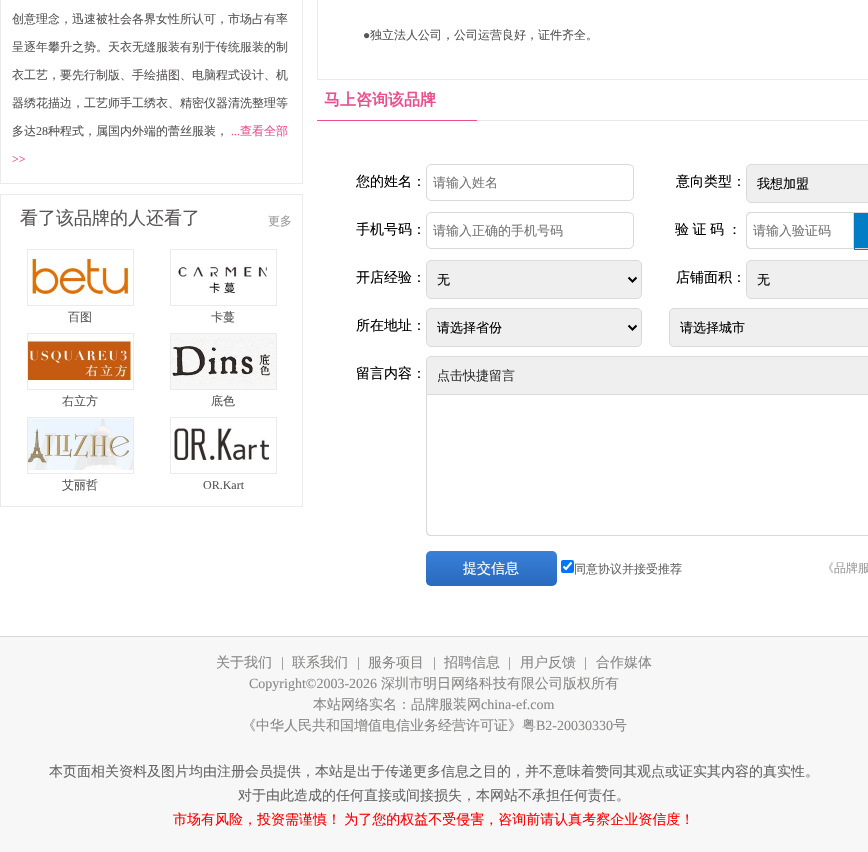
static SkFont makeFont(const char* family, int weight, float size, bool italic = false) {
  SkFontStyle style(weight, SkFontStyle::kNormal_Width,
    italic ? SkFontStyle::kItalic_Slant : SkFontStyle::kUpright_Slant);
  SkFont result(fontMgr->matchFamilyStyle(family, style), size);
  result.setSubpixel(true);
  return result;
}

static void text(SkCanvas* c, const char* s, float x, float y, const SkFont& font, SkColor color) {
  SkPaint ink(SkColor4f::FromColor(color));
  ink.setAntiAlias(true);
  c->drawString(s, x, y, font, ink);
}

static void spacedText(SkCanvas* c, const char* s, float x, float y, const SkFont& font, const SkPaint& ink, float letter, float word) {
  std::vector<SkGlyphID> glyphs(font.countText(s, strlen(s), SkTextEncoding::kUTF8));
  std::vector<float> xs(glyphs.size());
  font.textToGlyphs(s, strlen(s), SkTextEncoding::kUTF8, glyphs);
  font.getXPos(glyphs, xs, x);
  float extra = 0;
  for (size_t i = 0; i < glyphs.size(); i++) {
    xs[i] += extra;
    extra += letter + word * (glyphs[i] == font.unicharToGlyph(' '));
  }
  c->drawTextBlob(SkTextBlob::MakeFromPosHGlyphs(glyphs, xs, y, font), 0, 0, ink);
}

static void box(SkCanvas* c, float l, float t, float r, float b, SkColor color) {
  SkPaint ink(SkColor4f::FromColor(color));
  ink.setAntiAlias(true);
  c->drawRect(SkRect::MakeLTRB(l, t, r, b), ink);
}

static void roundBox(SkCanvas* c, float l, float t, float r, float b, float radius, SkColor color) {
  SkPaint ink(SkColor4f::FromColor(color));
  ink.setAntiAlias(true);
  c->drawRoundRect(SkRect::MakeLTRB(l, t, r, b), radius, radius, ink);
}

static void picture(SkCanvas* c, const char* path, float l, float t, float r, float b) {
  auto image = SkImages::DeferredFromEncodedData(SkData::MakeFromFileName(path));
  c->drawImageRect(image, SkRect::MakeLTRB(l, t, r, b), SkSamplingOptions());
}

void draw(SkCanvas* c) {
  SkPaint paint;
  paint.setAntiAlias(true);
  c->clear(0xffffffff);
  paint.setStyle(SkPaint::kStroke_Style);
  paint.setStrokeWidth(1);
  paint.setColor(0xffebebeb);
  c->drawRect(SkRect::MakeLTRB(0.5f, -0.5f, 302.5f, 183.5f), paint);
  SkFont face1 = makeFont("WenQuanYi Zen Hei", 500, 12);
  text(c, "创意理念，迅速被社会各界女性所认可，市场占有率", 12, 23, face1, 0xff585555);
  text(c, "呈逐年攀升之势。天衣无缝服装有别于传统服装的制", 12, 51, face1, 0xff585555);
  text(c, "衣工艺，要先行制版、手绘描图、电脑程式设计、机", 12, 79, face1, 0xff585555);
  text(c, "器绣花描边，工艺师手工绣衣、精密仪器清洗整理等", 12, 107, face1, 0xff585555);
  text(c, "多达", 12, 135, face1, 0xff585555);
  SkFont face2 = makeFont("Liberation Serif", 400, 12);
  text(c, "28", 36, 135, face2, 0xff585555);
  text(c, "种程式，属国内外端的蕾丝服装，", 48, 135, face1, 0xff585555);
  text(c, "...", 231, 135, face2, 0xffe9508e);
  text(c, "查看全部", 240, 135, face1, 0xffe9508e);
  text(c, ">>", 12, 163, face2, 0xffe9508e);
  c->drawRect(SkRect::MakeLTRB(0.5f, 194.5f, 302.5f, 506.5f), paint);
  SkFont face3 = makeFont("WenQuanYi Zen Hei", 500, 18);
  text(c, "看了该品牌的人还看了", 20, 224, face3, 0xff585555);
  text(c, "更多", 268, 225, face1, 0xff999999);
  c->drawRect(SkRect::MakeLTRB(27.5f, 249.5f, 133.5f, 305.5f), paint);
  picture(c, "img_01.png", 28, 258, 132, 298);
  text(c, "百图", 68, 321, face1, 0xff585555);
  c->drawRect(SkRect::MakeLTRB(170.5f, 249.5f, 276.5f, 305.5f), paint);
  picture(c, "img_02.png", 178, 266, 267, 294);
  text(c, "卡蔓", 211, 321, face1, 0xff585555);
  c->drawRect(SkRect::MakeLTRB(27.5f, 333.5f, 133.5f, 389.5f), paint);
  picture(c, "img_03.png", 28, 336, 132, 382);
  text(c, "右立方", 62, 405, face1, 0xff585555);
  c->drawRect(SkRect::MakeLTRB(170.5f, 333.5f, 276.5f, 389.5f), paint);
  picture(c, "img_04.png", 171, 334, 276, 389);
  text(c, "底色", 211, 405, face1, 0xff585555);
  c->drawRect(SkRect::MakeLTRB(27.5f, 417.5f, 133.5f, 473.5f), paint);
  picture(c, "img_05.png", 28, 418, 133, 470);
  text(c, "艾丽哲", 62, 489, face1, 0xff585555);
  c->drawRect(SkRect::MakeLTRB(170.5f, 417.5f, 276.5f, 473.5f), paint);
  picture(c, "img_06.png", 174, 426, 269, 460);
  text(c, "OR.Kart", 203, 489, face2, 0xff585555);
  c->drawRect(SkRect::MakeLTRB(317.5f, -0.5f, 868.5f, 79.5f), paint);
  text(c, "●", 363, 39, face2, 0xff585555);
  text(c, "独立法人公司，公司运营良好，证件齐全。", 370, 39, face1, 0xff585555);
  SkFont face4 = makeFont("WenQuanYi Zen Hei", 700, 16);
  text(c, "马上咨询该品牌", 324, 105, face4, 0xffe9508e);
  box(c, 477, 120, 868, 121, 0xffe8e8e8);
  box(c, 317, 120, 477, 121, 0xffe9508e);
  SkFont face5 = makeFont("WenQuanYi Zen Hei", 500, 14);
  text(c, "您的姓名：", 356, 186, face5, 0xff000000);
  paint.setColor(0xffd9d9d9);
  c->drawRoundRect(SkRect::MakeLTRB(426.5f, 164.5f, 633.5f, 200.5f), 4.5f, 4.5f, paint);
  SkFont face6 = makeFont("WenQuanYi Zen Hei", 500, 13);
  text(c, "请输入姓名", 433, 187, face6, 0xff757575);
  text(c, "意向类型：", 676, 186, face5, 0xff000000);
  paint.setStyle(SkPaint::kFill_Style);
  paint.setColor(0xffefefef);
  c->drawRoundRect(SkRect::MakeLTRB(746.5f, 164.5f, 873.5f, 202.5f), 4.5f, 4.5f, paint);
  paint.setStyle(SkPaint::kStroke_Style);
  paint.setColor(0xffd9d9d9);
  c->drawRoundRect(SkRect::MakeLTRB(746.5f, 164.5f, 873.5f, 202.5f), 4.5f, 4.5f, paint);
  text(c, "我想加盟", 757, 188, face6, 0xff000000);
  text(c, "手机号码：", 356, 234, face5, 0xff000000);
  c->drawRoundRect(SkRect::MakeLTRB(426.5f, 212.5f, 633.5f, 248.5f), 4.5f, 4.5f, paint);
  text(c, "请输入正确的手机号码", 433, 235, face6, 0xff757575);
  paint.setStyle(SkPaint::kFill_Style);
  paint.setColor(0xff000000);
  spacedText(c, "验证码：", 675, 234, face5, paint, 3.5f, 0);
  paint.setColor(0xffd9d9d9);
  c->drawPath(SkPathBuilder(SkPathFillType::kEvenOdd).moveTo(751, 212).lineTo(853, 212).lineTo(853, 249).lineTo(751, 249).cubicTo(748, 249, 746, 247, 746, 244).lineTo(746, 217).cubicTo(746, 214, 748, 212, 751, 212).close().moveTo(751, 213).lineTo(853, 213).lineTo(853, 248).lineTo(751, 248).cubicTo(749, 248, 747, 246, 747, 244).lineTo(747, 217).cubicTo(747, 215, 749, 213, 751, 213).close().detach(), paint);
  text(c, "请输入验证码", 753, 235, face6, 0xff757575);
  box(c, 855, 214, 868, 248, 0xff007dc5);
  paint.setStyle(SkPaint::kStroke_Style);
  c->drawRect(SkRect::MakeLTRB(853.5f, 212.5f, 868.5f, 248.5f), paint);
  paint.setColor(0xff007dc5);
  c->drawRect(SkRect::MakeLTRB(854.5f, 213.5f, 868.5f, 249.5f), paint);
  text(c, "开店经验：", 356, 282, face5, 0xff000000);
  paint.setStyle(SkPaint::kFill_Style);
  paint.setColor(0xffefefef);
  c->drawRoundRect(SkRect::MakeLTRB(426.5f, 260.5f, 641.5f, 298.5f), 4.5f, 4.5f, paint);
  paint.setStyle(SkPaint::kStroke_Style);
  paint.setColor(0xffd9d9d9);
  c->drawRoundRect(SkRect::MakeLTRB(426.5f, 260.5f, 641.5f, 298.5f), 4.5f, 4.5f, paint);
  paint.setStrokeWidth(2);
  paint.setColor(0xff000000);
  c->drawPath(SkPathBuilder().moveTo(628.5f, 277.5f).lineTo(632.5f, 281.5f).lineTo(636.5f, 277.5f).detach(), paint);
  text(c, "无", 437, 284, face6, 0xff000000);
  text(c, "店铺面积：", 676, 282, face5, 0xff000000);
  paint.setStyle(SkPaint::kFill_Style);
  paint.setColor(0xffefefef);
  c->drawRoundRect(SkRect::MakeLTRB(746.5f, 260.5f, 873.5f, 298.5f), 4.5f, 4.5f, paint);
  paint.setStyle(SkPaint::kStroke_Style);
  paint.setStrokeWidth(1);
  paint.setColor(0xffd9d9d9);
  c->drawRoundRect(SkRect::MakeLTRB(746.5f, 260.5f, 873.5f, 298.5f), 4.5f, 4.5f, paint);
  text(c, "无", 757, 284, face6, 0xff000000);
  text(c, "所在地址：", 356, 330, face5, 0xff000000);
  paint.setStyle(SkPaint::kFill_Style);
  paint.setColor(0xffefefef);
  c->drawRoundRect(SkRect::MakeLTRB(426.5f, 308.5f, 641.5f, 346.5f), 4.5f, 4.5f, paint);
  paint.setStyle(SkPaint::kStroke_Style);
  paint.setColor(0xffd9d9d9);
  c->drawRoundRect(SkRect::MakeLTRB(426.5f, 308.5f, 641.5f, 346.5f), 4.5f, 4.5f, paint);
  paint.setStrokeWidth(2);
  paint.setColor(0xff000000);
  c->drawPath(SkPathBuilder().moveTo(628.5f, 325.5f).lineTo(632.5f, 329.5f).lineTo(636.5f, 325.5f).detach(), paint);
  text(c, "请选择省份", 437, 332, face6, 0xff000000);
  paint.setStyle(SkPaint::kFill_Style);
  paint.setColor(0xffefefef);
  c->drawRoundRect(SkRect::MakeLTRB(669.5f, 308.5f, 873.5f, 346.5f), 4.5f, 4.5f, paint);
  paint.setStyle(SkPaint::kStroke_Style);
  paint.setStrokeWidth(1);
  paint.setColor(0xffd9d9d9);
  c->drawRoundRect(SkRect::MakeLTRB(669.5f, 308.5f, 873.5f, 346.5f), 4.5f, 4.5f, paint);
  text(c, "请选择城市", 680, 332, face6, 0xff000000);
  text(c, "留言内容：", 356, 378, face5, 0xff000000);
  paint.setStyle(SkPaint::kFill_Style);
  paint.setColor(0xffefefef);
  c->drawPath(SkPathBuilder().moveTo(431, 356.5f).lineTo(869, 356.5f).cubicTo(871.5f, 356.5f, 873.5f, 358.5f, 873.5f, 361).lineTo(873.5f, 394.5f).lineTo(426.5f, 394.5f).lineTo(426.5f, 361).cubicTo(426.5f, 358.5f, 428.5f, 356.5f, 431, 356.5f).close().detach(), paint);
  paint.setStyle(SkPaint::kStroke_Style);
  paint.setColor(0xffd9d9d9);
  c->drawPath(SkPathBuilder().moveTo(431, 356.5f).lineTo(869, 356.5f).cubicTo(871.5f, 356.5f, 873.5f, 358.5f, 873.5f, 361).lineTo(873.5f, 394.5f).lineTo(426.5f, 394.5f).lineTo(426.5f, 361).cubicTo(426.5f, 358.5f, 428.5f, 356.5f, 431, 356.5f).close().detach(), paint);
  text(c, "点击快捷留言", 437, 380, face6, 0xff333333);
  paint.setStyle(SkPaint::kFill_Style);
  c->drawPath(SkPathBuilder(SkPathFillType::kEvenOdd).moveTo(426, 395).lineTo(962, 395).lineTo(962, 531).cubicTo(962, 534, 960, 536, 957, 536).lineTo(431, 536).cubicTo(428, 536, 426, 534, 426, 531).close().moveTo(427, 395).lineTo(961, 395).lineTo(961, 531).cubicTo(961, 533, 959, 535, 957, 535).lineTo(431, 535).cubicTo(429, 535, 427, 533, 427, 531).close().detach(), paint);
  {
    const SkColor colors[] = {0xff3a80d9, 0xff286abe};
    const float stops[] = {0, 1};
    const SkPoint ends[] = {{492, 551}, {492, 586}};
    paint.setShader(SkGradientShader::MakeLinear(ends, colors, stops, 2, SkTileMode::kClamp));
    paint.setAlpha(255);
  }
  c->drawRoundRect(SkRect::MakeLTRB(426, 551, 557, 586), 5, 5, paint);
  text(c, "提交信息", 463, 573, face5, 0xffffffff);
  roundBox(c, 561, 560, 574, 573, 2, 0xff0075ff);
  paint.setStyle(SkPaint::kStroke_Style);
  paint.setStrokeWidth(2.1f);
  paint.setShader(nullptr);
  paint.setColor(0xffffffff);
  c->drawPath(SkPathBuilder().moveTo(563.5f, 566.5f).lineTo(566, 569).lineTo(571.5f, 562.5f).detach(), paint);
  text(c, "同意协议并接受推荐", 574, 573, face1, 0xff666666);
  text(c, "《品牌服", 822, 572, face1, 0xff999999);
  box(c, 0, 637, 868, 852, 0xfff7f7f7);
  box(c, 0, 636, 868, 637, 0xffd7d7d7);
  text(c, "关于我们", 216, 667, face5, 0xff888886);
  SkFont face7 = makeFont("Liberation Serif", 400, 14);
  text(c, "|", 281, 667, face7, 0xff888886);
  text(c, "联系我们", 292, 667, face5, 0xff888886);
  text(c, "|", 357, 667, face7, 0xff888886);
  text(c, "服务项目", 368, 667, face5, 0xff888886);
  text(c, "|", 433, 667, face7, 0xff888886);
  text(c, "招聘信息", 444, 667, face5, 0xff888886);
  text(c, "|", 508, 667, face7, 0xff888886);
  text(c, "用户反馈", 520, 667, face5, 0xff888886);
  text(c, "|", 584, 667, face7, 0xff888886);
  text(c, "合作媒体", 596, 667, face5, 0xff888886);
  text(c, "Copyright©2003-2026", 249, 688, face7, 0xff888886);
  text(c, "深圳市明日网络科技有限公司版权所有", 381, 688, face5, 0xff888886);
  text(c, "本站网络实名：品牌服装网", 313, 709, face5, 0xff888886);
  text(c, "china-ef.com", 481, 709, face7, 0xff888886);
  text(c, "《中华人民共和国增值电信业务经营许可证》粤", 242, 730, face5, 0xff888886);
  text(c, "B2-20030330", 536, 730, face7, 0xff888886);
  text(c, "号", 613, 730, face5, 0xff888886);
  text(c, "本页面相关资料及图片均由注册会员提供，本站是出于传递更多信息之目的，并不意味着赞同其观点或证实其内容的真实性。", 49, 776, face5, 0xff666666);
  text(c, "对于由此造成的任何直接或间接损失，本网站不承担任何责任。", 238, 800, face5, 0xff666666);
  paint.setStyle(SkPaint::kFill_Style);
  paint.setColor(0xffff0000);
  spacedText(c, "市场有风险，投资需谨慎！ 为了您的权益不受侵害，咨询前请认真考察企业资信度！", 173, 824, face5, paint, 0, -1);
}
